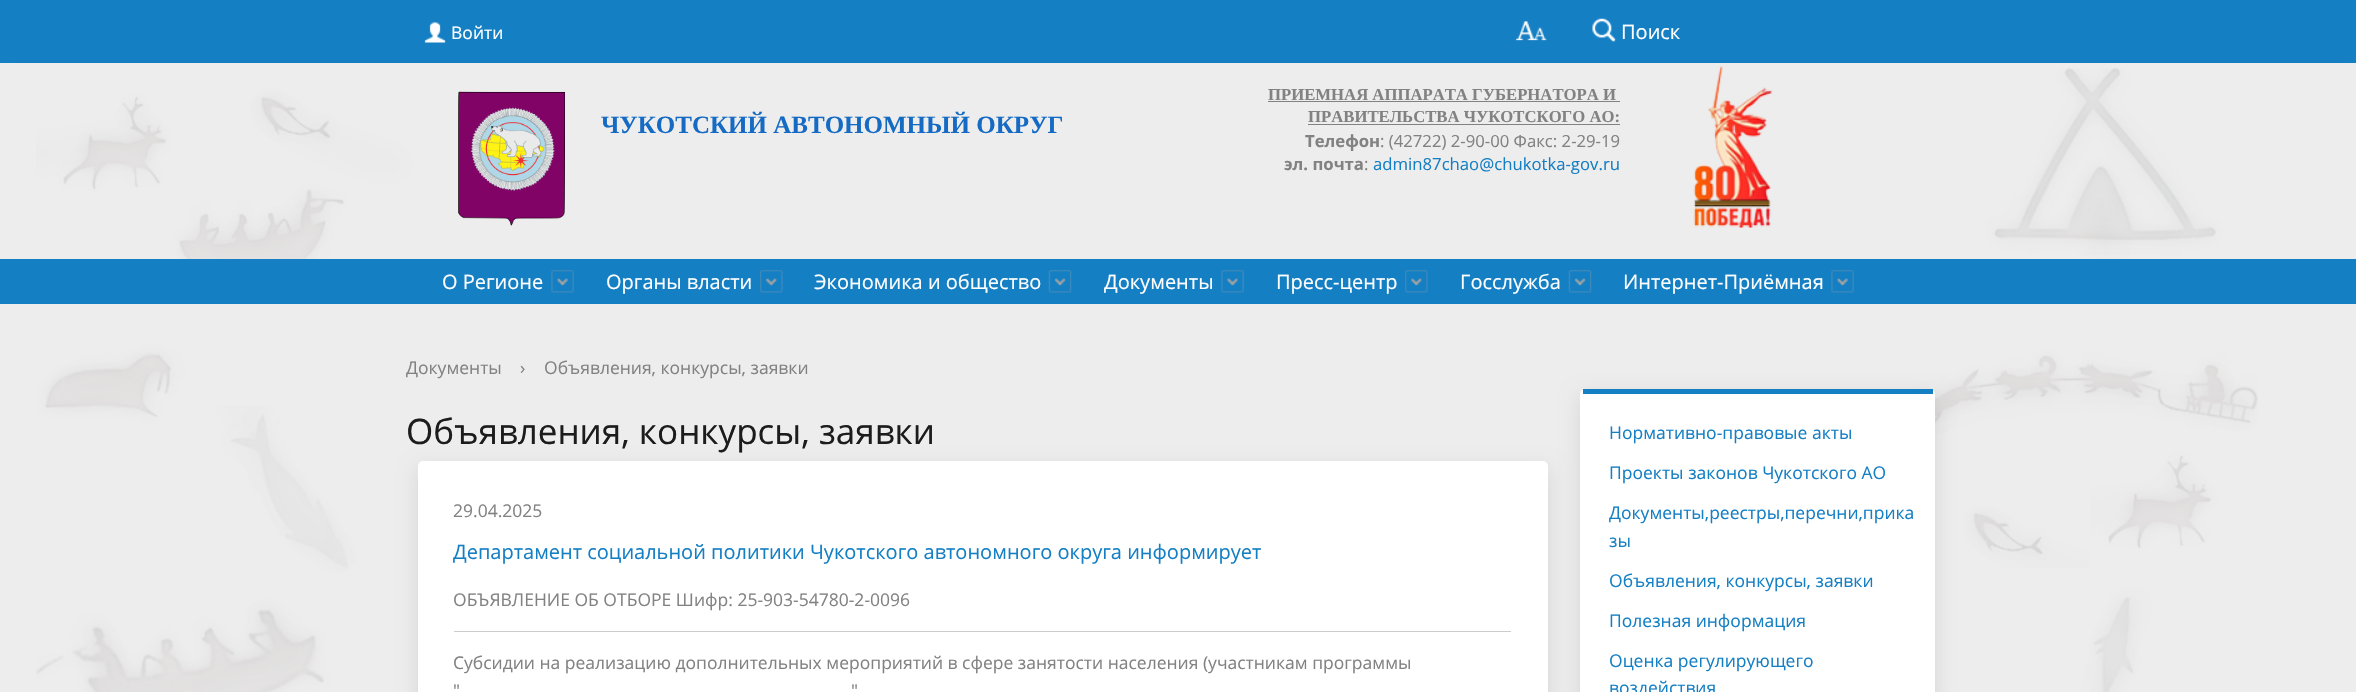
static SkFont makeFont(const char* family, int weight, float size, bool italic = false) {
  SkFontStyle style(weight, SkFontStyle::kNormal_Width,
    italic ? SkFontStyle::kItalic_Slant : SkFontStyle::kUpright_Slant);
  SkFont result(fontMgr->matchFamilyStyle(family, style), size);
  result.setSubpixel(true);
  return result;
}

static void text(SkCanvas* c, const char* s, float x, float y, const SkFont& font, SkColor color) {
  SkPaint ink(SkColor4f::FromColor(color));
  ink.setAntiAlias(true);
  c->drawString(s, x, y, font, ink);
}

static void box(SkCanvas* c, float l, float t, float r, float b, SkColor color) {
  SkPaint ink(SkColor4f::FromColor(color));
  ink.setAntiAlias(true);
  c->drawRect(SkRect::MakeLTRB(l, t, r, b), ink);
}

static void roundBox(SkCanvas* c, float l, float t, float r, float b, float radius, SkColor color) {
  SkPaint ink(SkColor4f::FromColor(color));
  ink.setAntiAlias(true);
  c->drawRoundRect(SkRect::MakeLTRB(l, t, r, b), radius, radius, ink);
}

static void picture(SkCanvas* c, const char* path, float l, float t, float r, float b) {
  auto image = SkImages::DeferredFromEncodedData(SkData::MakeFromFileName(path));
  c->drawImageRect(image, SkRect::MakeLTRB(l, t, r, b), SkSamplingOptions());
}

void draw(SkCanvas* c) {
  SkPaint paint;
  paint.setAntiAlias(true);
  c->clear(0xffededed);
  picture(c, "img_01.png", 36, 68, 2258, 692);
  box(c, 0, 0, 2356, 63, 0xff157fc4);
  c->save();
  c->clipRect(SkRect::MakeLTRB(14, 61, 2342, 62));
  paint.setColor(0x1a000000);
  paint.setMaskFilter(SkMaskFilter::MakeBlur(kNormal_SkBlurStyle, 9.5f));
  c->drawRect(SkRect::MakeLTRB(0, 69, 2356, 265), paint);
  paint.setMaskFilter(nullptr);
  c->restore();
  picture(c, "img_02.png", 424, 22, 446, 43);
  SkFont face1 = makeFont("Open Sans", 400, 17.5f);
  text(c, "Войти", 451, 39, face1, 0xffffffff);
  picture(c, "img_03.png", 1516, 21, 1547, 41);
  picture(c, "img_04.png", 1592, 18, 1616, 42);
  SkFont face2 = makeFont("Open Sans", 400, 20);
  text(c, "Поиск", 1621, 39, face2, 0xffffffff);
  picture(c, "img_05.png", 458, 91, 565, 226);
  SkFont face3 = makeFont("Liberation Serif", 700, 25);
  text(c, "ЧУКОТСКИЙ АВТОНОМНЫЙ ОКРУГ", 601, 133, face3, 0xff156bc4);
  SkFont face4 = makeFont("Liberation Serif", 700, 16.7f);
  text(c, "ПРИЕМНАЯ АППАРАТА ГУБЕРНАТОРА И", 1268, 100, face4, 0xff828282);
  box(c, 1268, 101, 1620, 102, 0xff828282);
  text(c, "ПРАВИТЕЛЬСТВА ЧУКОТСКОГО АО:", 1308, 122, face4, 0xff828282);
  box(c, 1308, 124, 1620, 125, 0xff828282);
  SkFont face5 = makeFont("Open Sans", 700, 16.7f);
  text(c, "Телефон", 1305, 147, face5, 0xff828282);
  SkFont face6 = makeFont("Open Sans", 400, 16.7f);
  text(c, ": (42722) 2-90-00 Факс: 2-29-19", 1380, 147, face6, 0xff828282);
  text(c, "эл. почта", 1284, 170, face5, 0xff828282);
  text(c, ":", 1364, 170, face6, 0xff828282);
  text(c, "admin87chao@chukotka-gov.ru", 1373, 170, face6, 0xff157fc4);
  picture(c, "img_06.png", 1693, 66, 1773, 228);
  box(c, 0, 259, 2356, 304, 0xff157fc4);
  text(c, "О Регионе", 442, 289, face2, 0xffffffff);
  picture(c, "img_07.png", 551, 270, 574, 293);
  text(c, "Органы власти", 606, 289, face2, 0xffffffff);
  picture(c, "img_08.png", 760, 270, 783, 293);
  text(c, "Экономика и общество", 814, 289, face2, 0xffffffff);
  picture(c, "img_09.png", 1048, 270, 1072, 293);
  text(c, "Документы", 1104, 289, face2, 0xffffffff);
  picture(c, "img_10.png", 1221, 270, 1244, 293);
  text(c, "Пресс-центр", 1276, 289, face2, 0xffffffff);
  picture(c, "img_11.png", 1405, 270, 1428, 293);
  text(c, "Госслужба", 1460, 289, face2, 0xffffffff);
  picture(c, "img_12.png", 1568, 270, 1592, 293);
  text(c, "Интернет-Приёмная", 1623, 289, face2, 0xffffffff);
  picture(c, "img_07.png", 1831, 270, 1854, 293);
  text(c, "Документы", 406, 374, face1, 0xff828282);
  text(c, "›", 520, 374, face1, 0xff828282);
  text(c, "Объявления, конкурсы, заявки", 544, 374, face1, 0xff828282);
  paint.setMaskFilter(SkMaskFilter::MakeBlur(kNormal_SkBlurStyle, 9.5f));
  c->drawRoundRect(SkRect::MakeLTRB(418, 468, 1548, 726), 5, 5, paint);
  paint.setMaskFilter(nullptr);
  SkFont face7 = makeFont("Open Sans", 400, 35);
  text(c, "Объявления, конкурсы, заявки", 406, 444, face7, 0xff1c1c1c);
  roundBox(c, 418, 461, 1548, 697, 5, 0xffffffff);
  text(c, "29.04.2025", 453, 517, face1, 0xff828282);
  text(c, "Департамент социальной политики Чукотского автономного округа информирует", 453, 559, face2, 0xff157fc4);
  text(c, "ОБЪЯВЛЕНИЕ ОБ ОТБОРЕ Шифр: 25-903-54780-2-0096", 453, 606, face1, 0xff828282);
  box(c, 454, 631, 1511, 632, 0xffcccccc);
  text(c, "Субсидии на реализацию дополнительных мероприятий в сфере занятости населения (участникам программы", 453, 669, face1, 0xff828282);
  text(c, "\"", 453, 697, face1, 0xff828282);
  text(c, "\"", 851, 697, face1, 0xff828282);
  paint.setMaskFilter(SkMaskFilter::MakeBlur(kNormal_SkBlurStyle, 9.5f));
  c->drawRoundRect(SkRect::MakeLTRB(1580, 395, 1935, 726), 5, 5, paint);
  paint.setMaskFilter(nullptr);
  roundBox(c, 1580, 389, 1935, 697, 5, 0xffffffff);
  box(c, 1583, 389, 1933, 394, 0xff157fc4);
  text(c, "Нормативно-правовые акты", 1609, 439, face1, 0xff157fc4);
  text(c, "Проекты законов Чукотского АО", 1609, 479, face1, 0xff157fc4);
  text(c, "Документы,реестры,перечни,прика", 1609, 519, face1, 0xff157fc4);
  text(c, "зы", 1609, 547, face1, 0xff157fc4);
  text(c, "Объявления, конкурсы, заявки", 1609, 587, face1, 0xff157fc4);
  text(c, "Полезная информация", 1609, 627, face1, 0xff157fc4);
  text(c, "Оценка регулирующего", 1609, 667, face1, 0xff157fc4);
  text(c, "воздействия", 1609, 694, face1, 0xff157fc4);
}
